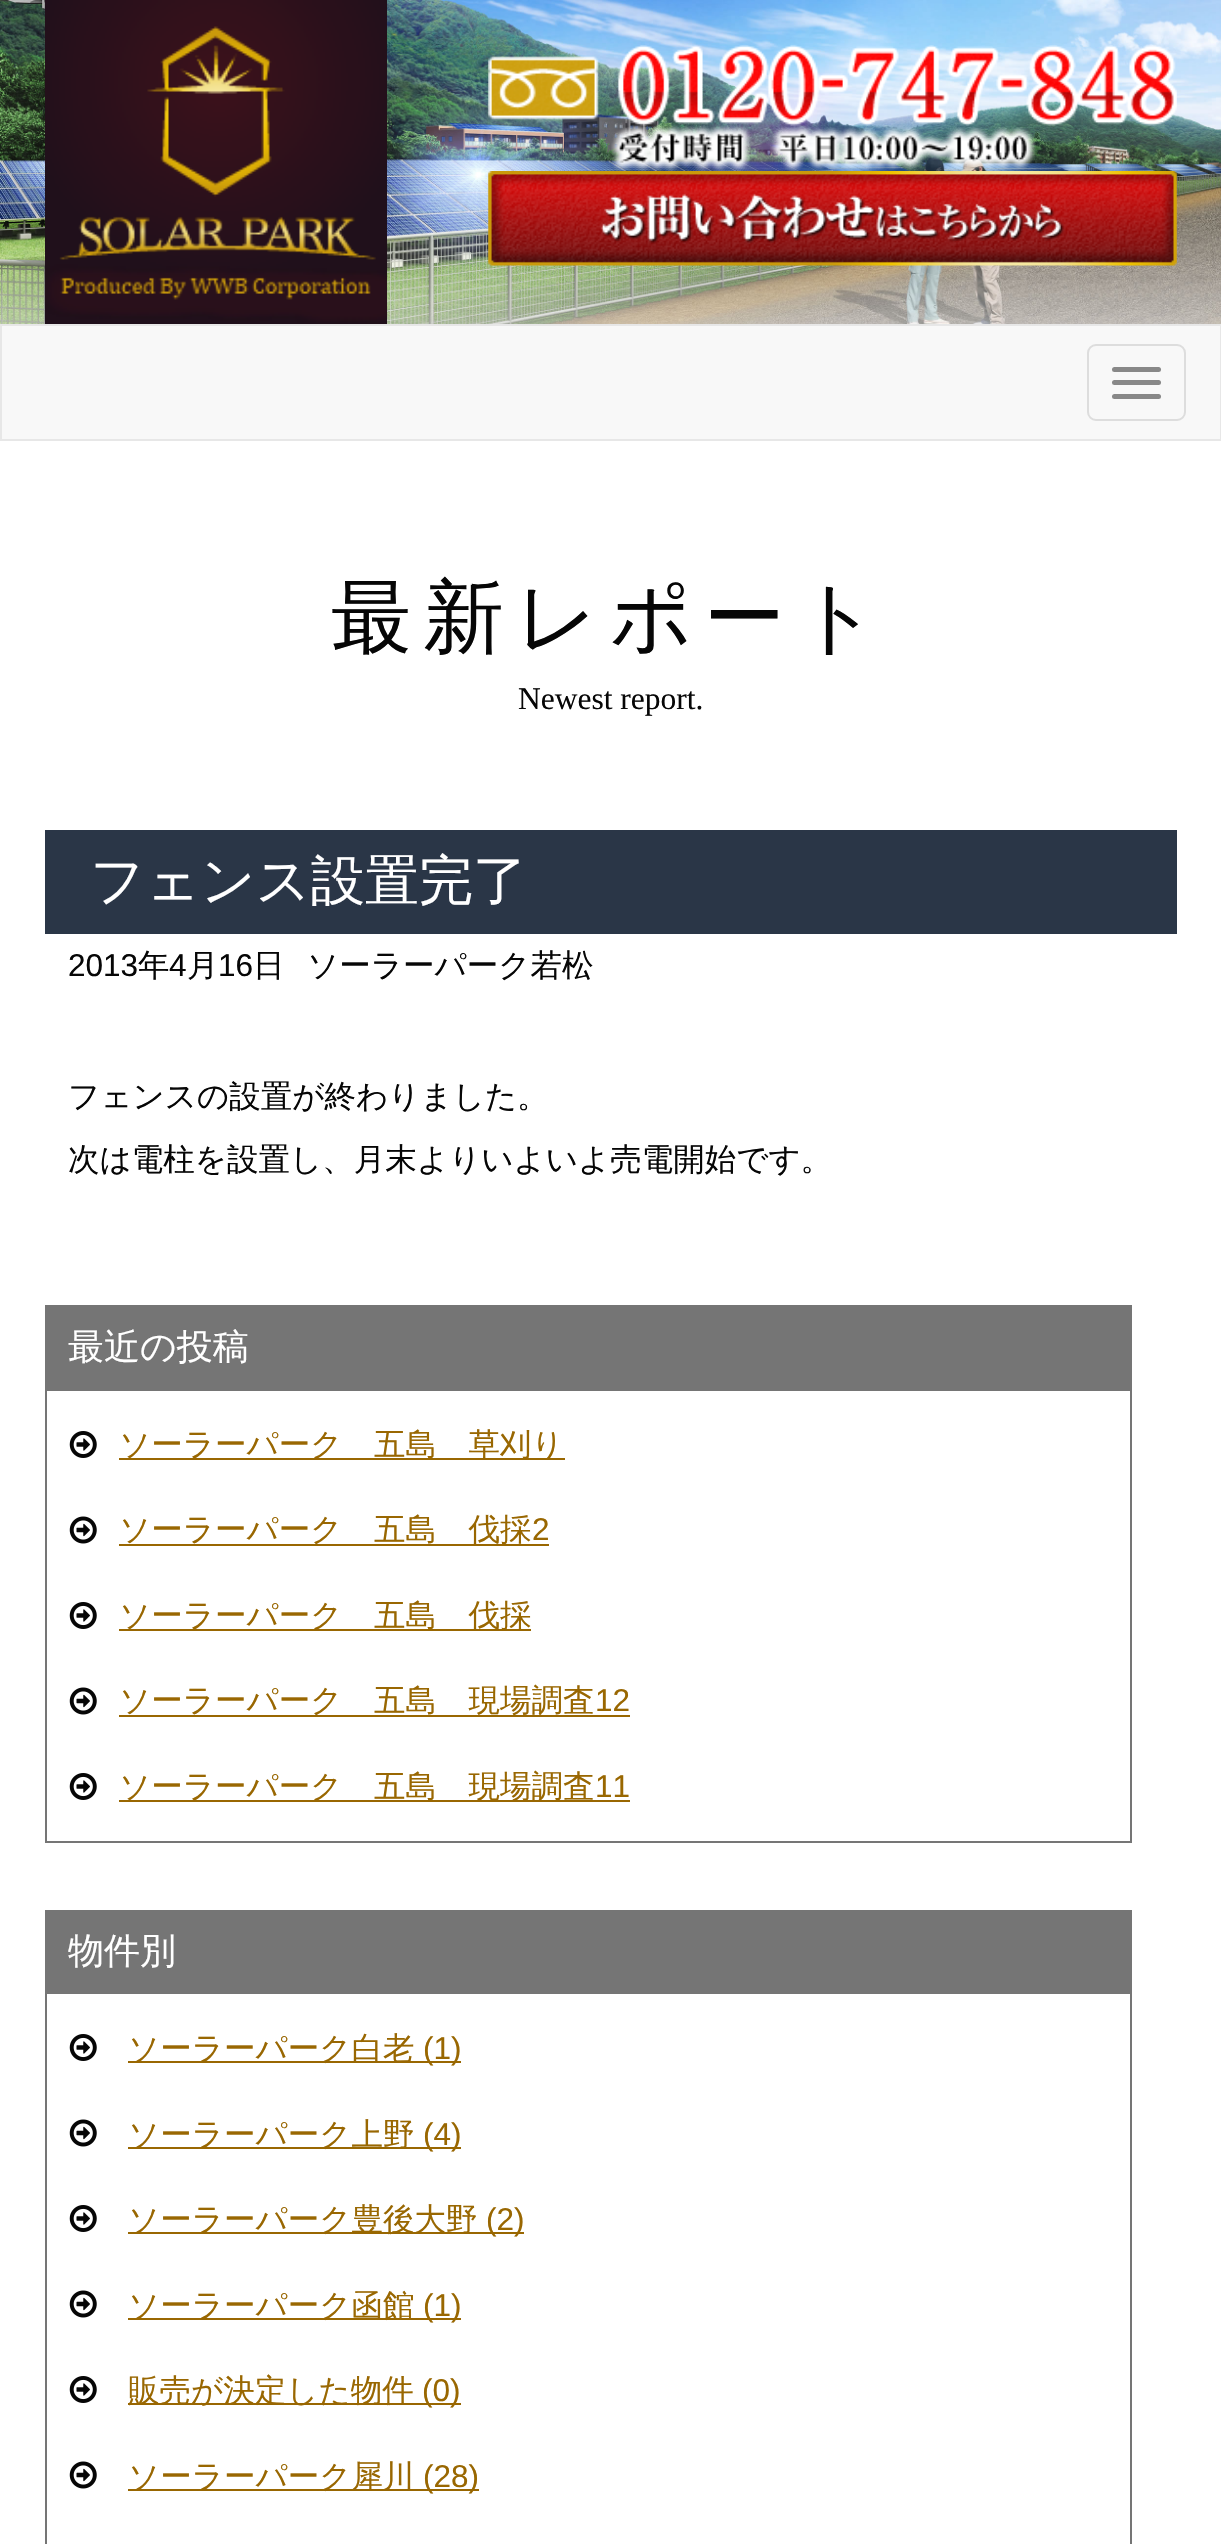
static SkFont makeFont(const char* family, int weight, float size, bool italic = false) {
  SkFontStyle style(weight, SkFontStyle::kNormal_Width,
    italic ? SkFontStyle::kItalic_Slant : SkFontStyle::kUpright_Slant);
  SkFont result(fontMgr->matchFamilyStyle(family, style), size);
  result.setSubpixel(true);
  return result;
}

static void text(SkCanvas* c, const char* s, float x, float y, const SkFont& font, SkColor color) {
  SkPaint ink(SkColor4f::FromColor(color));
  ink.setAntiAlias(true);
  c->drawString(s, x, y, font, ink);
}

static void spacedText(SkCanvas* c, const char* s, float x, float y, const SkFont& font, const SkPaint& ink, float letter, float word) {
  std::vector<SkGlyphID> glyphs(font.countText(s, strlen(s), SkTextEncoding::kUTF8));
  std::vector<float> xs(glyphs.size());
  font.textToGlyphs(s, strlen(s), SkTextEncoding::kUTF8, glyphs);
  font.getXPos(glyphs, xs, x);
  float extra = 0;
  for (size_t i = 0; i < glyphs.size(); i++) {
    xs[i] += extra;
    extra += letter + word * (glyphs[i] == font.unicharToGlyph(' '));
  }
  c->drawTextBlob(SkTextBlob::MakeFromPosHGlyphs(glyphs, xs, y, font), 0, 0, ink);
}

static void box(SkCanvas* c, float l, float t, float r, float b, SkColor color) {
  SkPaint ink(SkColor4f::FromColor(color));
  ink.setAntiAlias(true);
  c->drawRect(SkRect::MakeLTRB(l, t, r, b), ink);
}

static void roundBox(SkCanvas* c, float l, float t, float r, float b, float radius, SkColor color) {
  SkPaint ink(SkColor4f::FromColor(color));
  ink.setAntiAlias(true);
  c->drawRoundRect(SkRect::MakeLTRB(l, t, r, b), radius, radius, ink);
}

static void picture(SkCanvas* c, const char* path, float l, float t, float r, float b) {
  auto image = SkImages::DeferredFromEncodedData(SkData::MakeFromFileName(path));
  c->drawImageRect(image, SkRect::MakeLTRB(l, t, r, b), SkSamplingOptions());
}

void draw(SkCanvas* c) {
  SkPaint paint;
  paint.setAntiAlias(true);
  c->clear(0xffffffff);
  picture(c, "img_01.png", 0, 0, 1221, 324);
  picture(c, "img_02.png", 45, 0, 387, 324);
  picture(c, "img_03.png", 488, 45, 1177, 171);
  picture(c, "img_04.png", 488, 171, 1177, 266);
  paint.setColor(0xfff8f8f8);
  c->drawRect(SkRect::MakeLTRB(1, 325, 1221, 440), paint);
  paint.setStyle(SkPaint::kStroke_Style);
  paint.setStrokeWidth(2);
  paint.setColor(0xffe7e7e7);
  c->drawRect(SkRect::MakeLTRB(1, 325, 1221, 440), paint);
  paint.setColor(0xffdddddd);
  c->drawRoundRect(SkRect::MakeLTRB(1088, 345, 1185, 420), 8, 8, paint);
  roundBox(c, 1112, 367, 1161, 372, 2.5f, 0xff888888);
  roundBox(c, 1112, 380, 1161, 385, 2.5f, 0xff888888);
  roundBox(c, 1112, 394, 1161, 399, 2.5f, 0xff888888);
  SkFont face1 = makeFont("WenQuanYi Zen Hei", 500, 81);
  paint.setStyle(SkPaint::kFill_Style);
  paint.setColor(0xff060606);
  spacedText(c, "最新レポート", 331, 645, face1, paint, 11.25f, 0);
  SkFont face2 = makeFont("Liberation Serif", 400, 31.5f);
  text(c, "Newest report.", 518, 709, face2, 0xff060606);
  box(c, 45, 830, 1177, 934, 0xff2a3647);
  SkFont face3 = makeFont("WenQuanYi Zen Hei", 500, 54);
  text(c, "フェンス設置完了", 90, 899, face3, 0xffffffff);
  SkFont face4 = makeFont("Liberation Sans", 400, 31.5f);
  text(c, "2013", 68, 976, face4, 0xff060606);
  SkFont face5 = makeFont("WenQuanYi Zen Hei", 500, 31.5f);
  text(c, "年", 138, 976, face5, 0xff060606);
  text(c, "4", 169, 976, face4, 0xff060606);
  text(c, "月", 187, 976, face5, 0xff060606);
  text(c, "16", 218, 976, face4, 0xff060606);
  text(c, "日", 253, 976, face5, 0xff060606);
  text(c, "ソーラーパーク若松", 307, 976, face5, 0xff060606);
  text(c, "フェンスの設置が終わりました。", 68, 1107, face5, 0xff060606);
  text(c, "次は電柱を設置し、月末よりいよいよ売電開始です。", 68, 1170, face5, 0xff060606);
  box(c, 45, 1305, 1132, 1391, 0xff757575);
  SkFont face6 = makeFont("WenQuanYi Zen Hei", 500, 36);
  text(c, "最近の投稿", 68, 1359, face6, 0xffffffff);
  box(c, 1130, 1391, 1132, 1843, 0xff757575);
  box(c, 45, 1841, 1132, 1843, 0xff757575);
  box(c, 45, 1391, 47, 1843, 0xff757575);
  picture(c, "img_05.png", 69, 1431, 97, 1458);
  box(c, 119, 1458, 565, 1460, 0xff996701);
  text(c, "ソーラーパーク　五島　草刈り", 119, 1455, face5, 0xff996701);
  picture(c, "img_06.png", 69, 1516, 97, 1544);
  box(c, 119, 1544, 549, 1546, 0xff996701);
  text(c, "ソーラーパーク　五島　伐採", 119, 1540, face5, 0xff996701);
  text(c, "2", 532, 1540, face4, 0xff996701);
  picture(c, "img_05.png", 69, 1602, 97, 1629);
  box(c, 119, 1629, 531, 1631, 0xff996701);
  text(c, "ソーラーパーク　五島　伐採", 119, 1626, face5, 0xff996701);
  picture(c, "img_06.png", 69, 1687, 97, 1715);
  box(c, 119, 1715, 630, 1717, 0xff996701);
  text(c, "ソーラーパーク　五島　現場調査", 119, 1711, face5, 0xff996701);
  text(c, "12", 595, 1711, face4, 0xff996701);
  picture(c, "img_05.png", 69, 1773, 97, 1800);
  box(c, 119, 1800, 630, 1802, 0xff996701);
  text(c, "ソーラーパーク　五島　現場調査", 119, 1797, face5, 0xff996701);
  text(c, "11", 595, 1797, face4, 0xff996701);
  box(c, 45, 1910, 1132, 1994, 0xff757575);
  text(c, "物件別", 68, 1963, face6, 0xffffffff);
  box(c, 1130, 1994, 1132, 2544, 0xff757575);
  box(c, 45, 1994, 47, 2544, 0xff757575);
  picture(c, "img_05.png", 69, 2034, 97, 2061);
  box(c, 128, 2061, 461, 2063, 0xff996701);
  text(c, "ソーラーパーク白老", 128, 2059, face5, 0xff996701);
  text(c, "(1)", 423, 2059, face4, 0xff996701);
  picture(c, "img_06.png", 69, 2119, 97, 2147);
  box(c, 128, 2147, 461, 2149, 0xff996701);
  text(c, "ソーラーパーク上野", 128, 2145, face5, 0xff996701);
  text(c, "(4)", 423, 2145, face4, 0xff996701);
  picture(c, "img_05.png", 69, 2205, 97, 2232);
  box(c, 128, 2232, 524, 2234, 0xff996701);
  text(c, "ソーラーパーク豊後大野", 128, 2230, face5, 0xff996701);
  text(c, "(2)", 486, 2230, face4, 0xff996701);
  picture(c, "img_06.png", 69, 2290, 97, 2318);
  box(c, 128, 2318, 461, 2320, 0xff996701);
  text(c, "ソーラーパーク函館", 128, 2316, face5, 0xff996701);
  text(c, "(1)", 423, 2316, face4, 0xff996701);
  picture(c, "img_05.png", 69, 2376, 97, 2403);
  box(c, 128, 2403, 461, 2405, 0xff996701);
  text(c, "販売が決定した物件", 128, 2401, face5, 0xff996701);
  text(c, "(0)", 422, 2401, face4, 0xff996701);
  picture(c, "img_06.png", 69, 2461, 97, 2489);
  box(c, 128, 2489, 479, 2491, 0xff996701);
  text(c, "ソーラーパーク犀川", 128, 2487, face5, 0xff996701);
  text(c, "(28)", 423, 2487, face4, 0xff996701);
}
